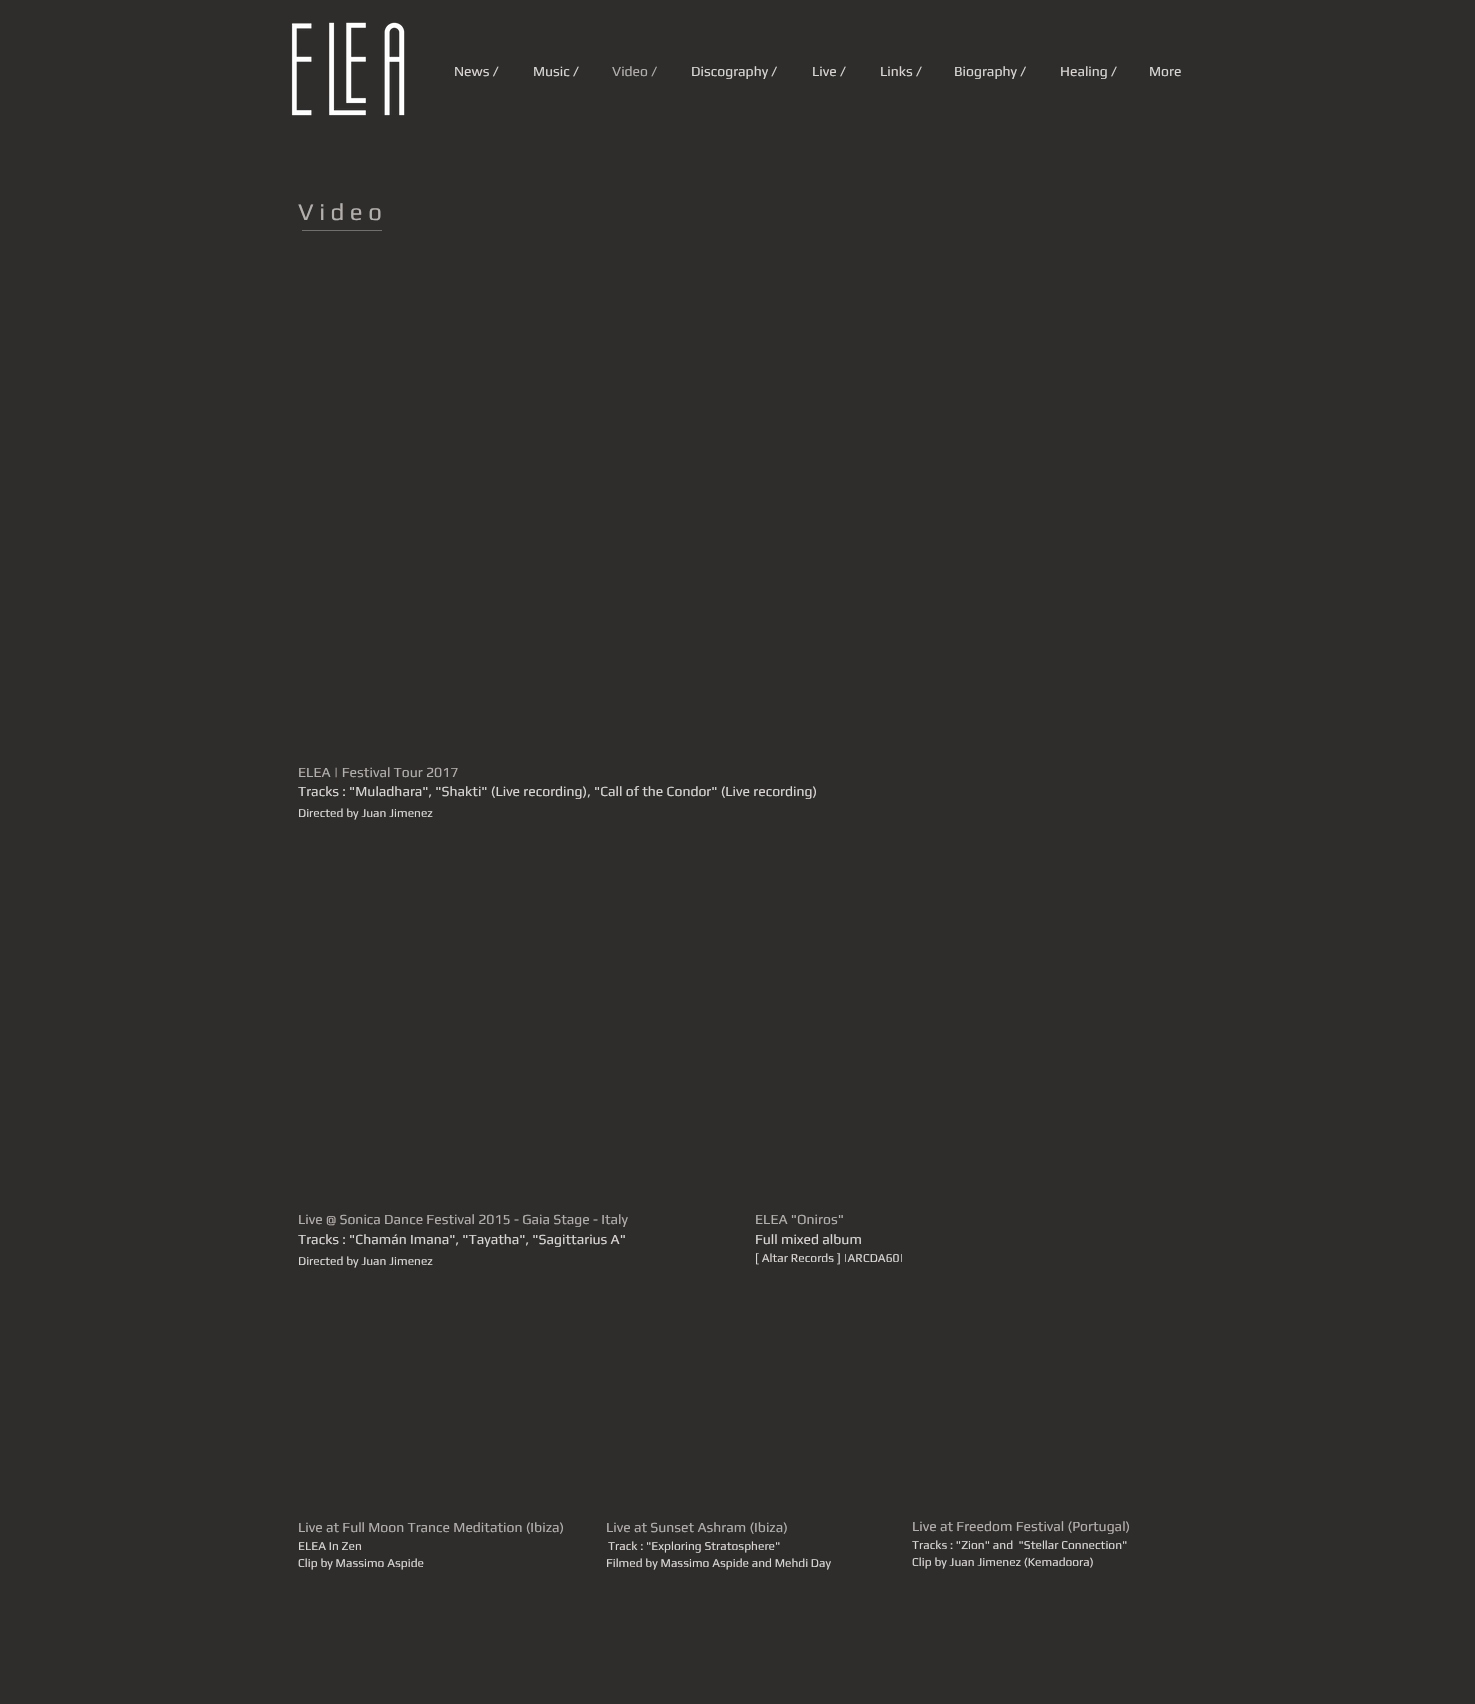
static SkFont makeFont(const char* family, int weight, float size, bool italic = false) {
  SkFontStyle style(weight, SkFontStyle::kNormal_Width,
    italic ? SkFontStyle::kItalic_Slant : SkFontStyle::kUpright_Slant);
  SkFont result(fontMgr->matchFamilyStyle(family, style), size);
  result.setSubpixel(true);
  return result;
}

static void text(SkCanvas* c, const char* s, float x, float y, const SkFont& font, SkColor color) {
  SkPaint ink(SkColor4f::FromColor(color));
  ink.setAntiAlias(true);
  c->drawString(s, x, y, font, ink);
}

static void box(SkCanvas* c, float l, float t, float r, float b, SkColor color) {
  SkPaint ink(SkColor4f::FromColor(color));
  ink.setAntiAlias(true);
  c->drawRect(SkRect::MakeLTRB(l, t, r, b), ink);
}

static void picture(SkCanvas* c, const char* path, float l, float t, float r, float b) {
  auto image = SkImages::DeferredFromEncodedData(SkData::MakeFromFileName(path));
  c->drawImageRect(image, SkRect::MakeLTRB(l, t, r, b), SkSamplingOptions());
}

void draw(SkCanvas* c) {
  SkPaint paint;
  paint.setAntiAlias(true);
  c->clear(0xff2f2d2c);
  picture(c, "img_01.png", 291, 22, 405, 116);
  SkFont face1 = makeFont("Play", 400, 14);
  text(c, "News /", 454, 76, face1, 0xffd9d6d4);
  text(c, "Music /", 533, 76, face1, 0xffd9d6d4);
  text(c, "Video /", 612, 76, face1, 0xffb3afad);
  text(c, "Discography /", 691, 76, face1, 0xffd9d6d4);
  text(c, "Live /", 812, 76, face1, 0xffd9d6d4);
  text(c, "Links /", 880, 76, face1, 0xffd9d6d4);
  text(c, "Biography /", 954, 76, face1, 0xffd9d6d4);
  text(c, "Healing /", 1060, 76, face1, 0xffd9d6d4);
  text(c, "More", 1149, 76, face1, 0xffd9d6d4);
  SkFont face2 = makeFont("Play", 400, 24);
  text(c, "V i d e o", 298, 220, face2, 0xffb3afad);
  box(c, 302, 230, 382, 231, 0xff716e6d);
  text(c, "ELEA | Festival Tour 2017", 298, 777, face1, 0xffb3afad);
  text(c, "Tracks : \"Muladhara\", \"Shakti\" (Live recording), \"Call of the Condor\" (Live recording)", 298, 796, face1, 0xffd9d6d4);
  SkFont face3 = makeFont("Play", 400, 12);
  text(c, "Directed by Juan Jimenez", 298, 817, face3, 0xffd9d6d4);
  text(c, "Live @ Sonica Dance Festival 2015 - Gaia Stage - Italy", 298, 1224, face1, 0xffb3afad);
  text(c, "Tracks : \"Chamán Imana\", \"Tayatha\", \"Sagittarius A\"", 298, 1244, face1, 0xffd9d6d4);
  text(c, "Directed by Juan Jimenez", 298, 1265, face3, 0xffd9d6d4);
  text(c, "ELEA \"Oniros\"", 755, 1224, face1, 0xffb3afad);
  text(c, "Full mixed album", 755, 1244, face1, 0xffd9d6d4);
  text(c, "[ Altar Records ] |ARCDA60|", 755, 1262, face3, 0xffd9d6d4);
  text(c, "Live at Full Moon Trance Meditation (Ibiza)", 298, 1532, face1, 0xffb3afad);
  text(c, "ELEA In Zen", 298, 1550, face3, 0xffd9d6d4);
  text(c, "Clip by Massimo Aspide", 298, 1567, face3, 0xffd9d6d4);
  text(c, "Live at Sunset Ashram (Ibiza)", 606, 1532, face1, 0xffb3afad);
  text(c, "Track : \"Exploring Stratosphere\"", 608, 1550, face3, 0xffd9d6d4);
  text(c, "Filmed by Massimo Aspide and Mehdi Day", 606, 1567, face3, 0xffd9d6d4);
  text(c, "Live at Freedom Festival (Portugal)", 912, 1531, face1, 0xffb3afad);
  text(c, "Tracks : \"Zion\" and  \"Stellar Connection\"", 912, 1549, face3, 0xffd9d6d4);
  text(c, "Clip by Juan Jimenez (Kemadoora)", 912, 1566, face3, 0xffd9d6d4);
}
